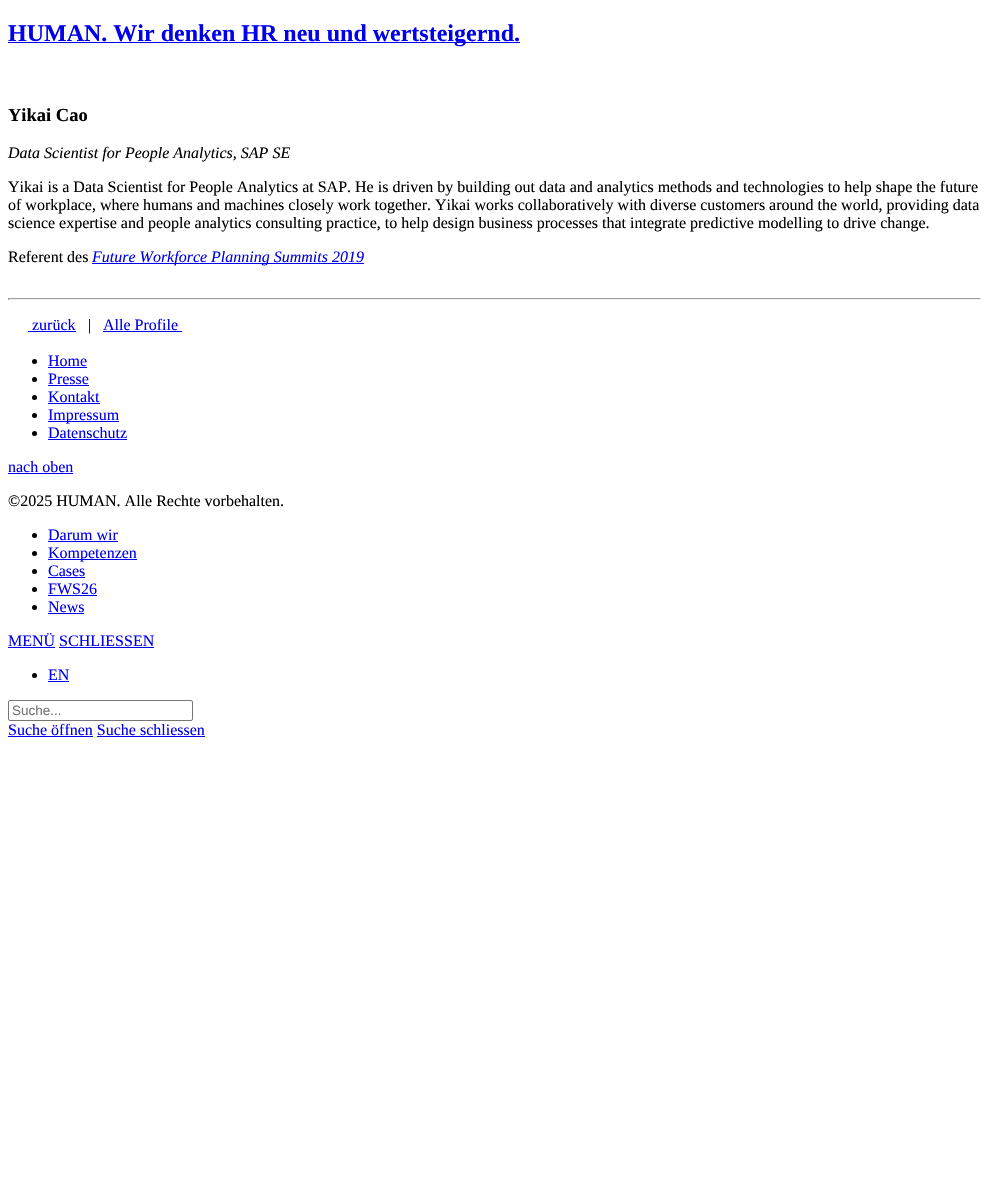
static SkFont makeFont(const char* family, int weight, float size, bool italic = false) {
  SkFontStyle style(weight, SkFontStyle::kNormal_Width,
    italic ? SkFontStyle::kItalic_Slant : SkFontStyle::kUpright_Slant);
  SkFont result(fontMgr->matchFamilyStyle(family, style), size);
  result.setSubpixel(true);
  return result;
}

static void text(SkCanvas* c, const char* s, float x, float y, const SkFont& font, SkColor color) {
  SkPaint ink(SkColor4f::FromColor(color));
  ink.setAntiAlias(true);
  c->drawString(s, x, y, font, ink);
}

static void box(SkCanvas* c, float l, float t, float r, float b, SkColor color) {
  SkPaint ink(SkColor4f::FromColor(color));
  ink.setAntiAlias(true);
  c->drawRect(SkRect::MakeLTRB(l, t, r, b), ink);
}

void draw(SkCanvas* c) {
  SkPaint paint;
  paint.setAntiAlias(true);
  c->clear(0xffffffff);
  box(c, 8, 42, 520, 43, 0xff0000ee);
  SkFont face1 = makeFont("Liberation Serif", 700, 24);
  text(c, "HUMAN. Wir denken HR neu und wertsteigernd.", 8, 41, face1, 0xff0000ee);
  SkFont face2 = makeFont("Liberation Serif", 700, 18.5f);
  text(c, "Yikai Cao", 8, 121, face2, 0xff000000);
  SkFont face3 = makeFont("Liberation Serif", 400, 16, true);
  text(c, "Data Scientist for People Analytics, SAP SE", 8, 158, face3, 0xff000000);
  SkFont face4 = makeFont("Liberation Serif", 400, 16);
  text(c, "Yikai is a Data Scientist for People Analytics at SAP. He is driven by building out data and analytics methods and technologies to help shape the future", 8, 192, face4, 0xff000000);
  text(c, "of workplace, where humans and machines closely work together. Yikai works collaboratively with diverse customers around the world, providing data", 8, 210, face4, 0xff000000);
  text(c, "science expertise and people analytics consulting practice, to help design business processes that integrate predictive modelling to drive change.", 8, 228, face4, 0xff000000);
  text(c, "Referent des", 8, 262, face4, 0xff000000);
  box(c, 92, 263, 364, 264, 0xff0000ee);
  text(c, "Future Workforce Planning Summits 2019", 92, 262, face3, 0xff0000ee);
  box(c, 8, 298, 981, 299, 0xff9f9f9f);
  box(c, 980, 298, 981, 300, 0xffeeeeee);
  box(c, 8, 299, 981, 300, 0xffeeeeee);
  box(c, 8, 298, 9, 300, 0xff9f9f9f);
  text(c, "zurück", 32, 330, face4, 0xff0000ee);
  box(c, 28, 331, 76, 332, 0xff0000ee);
  text(c, "|", 88, 330, face4, 0xff000000);
  text(c, "Alle Profile", 103, 330, face4, 0xff0000ee);
  box(c, 103, 331, 182, 332, 0xff0000ee);
  paint.setColor(0xff000000);
  c->drawCircle(34.5f, 361.5f, 2.5f, paint);
  text(c, "Home", 48, 366, face4, 0xff0000ee);
  box(c, 48, 367, 87, 368, 0xff0000ee);
  c->drawCircle(34.5f, 379.5f, 2.5f, paint);
  text(c, "Presse", 48, 384, face4, 0xff0000ee);
  box(c, 48, 385, 89, 386, 0xff0000ee);
  c->drawCircle(34.5f, 397.5f, 2.5f, paint);
  text(c, "Kontakt", 48, 402, face4, 0xff0000ee);
  box(c, 48, 403, 100, 404, 0xff0000ee);
  c->drawCircle(34.5f, 415.5f, 2.5f, paint);
  box(c, 48, 421, 119, 422, 0xff0000ee);
  text(c, "Impressum", 48, 420, face4, 0xff0000ee);
  c->drawCircle(34.5f, 433.5f, 2.5f, paint);
  text(c, "Datenschutz", 48, 438, face4, 0xff0000ee);
  box(c, 48, 439, 127, 440, 0xff0000ee);
  text(c, "nach oben", 8, 472, face4, 0xff0000ee);
  box(c, 8, 473, 73, 474, 0xff0000ee);
  text(c, "©2025 HUMAN. Alle Rechte vorbehalten.", 8, 506, face4, 0xff000000);
  c->drawCircle(34.5f, 535.5f, 2.5f, paint);
  text(c, "Darum wir", 48, 540, face4, 0xff0000ee);
  box(c, 48, 541, 118, 542, 0xff0000ee);
  c->drawCircle(34.5f, 553.5f, 2.5f, paint);
  box(c, 48, 559, 137, 560, 0xff0000ee);
  text(c, "Kompetenzen", 48, 558, face4, 0xff0000ee);
  c->drawCircle(34.5f, 571.5f, 2.5f, paint);
  text(c, "Cases", 48, 576, face4, 0xff0000ee);
  box(c, 48, 577, 85, 578, 0xff0000ee);
  c->drawCircle(34.5f, 589.5f, 2.5f, paint);
  text(c, "FWS26", 48, 594, face4, 0xff0000ee);
  box(c, 48, 595, 97, 596, 0xff0000ee);
  c->drawCircle(34.5f, 607.5f, 2.5f, paint);
  text(c, "News", 48, 612, face4, 0xff0000ee);
  box(c, 48, 613, 84, 614, 0xff0000ee);
  text(c, "MENÜ SCHLIESSEN", 8, 646, face4, 0xff0000ee);
  box(c, 8, 647, 55, 648, 0xff0000ee);
  box(c, 59, 647, 154, 648, 0xff0000ee);
  c->drawCircle(34.5f, 675.5f, 2.5f, paint);
  text(c, "EN", 48, 680, face4, 0xff0000ee);
  box(c, 48, 681, 69, 682, 0xff0000ee);
  paint.setStyle(SkPaint::kStroke_Style);
  paint.setStrokeWidth(1);
  paint.setColor(0xff767676);
  c->drawRoundRect(SkRect::MakeLTRB(8.5f, 700.5f, 192.5f, 720.5f), 1.5f, 1.5f, paint);
  SkFont face5 = makeFont("Liberation Sans", 400, 13.5f);
  text(c, "Suche...", 12, 715, face5, 0xff757575);
  text(c, "Suche öffnen Suche schliessen", 8, 735, face4, 0xff0000ee);
  box(c, 8, 736, 93, 737, 0xff0000ee);
  box(c, 97, 736, 205, 737, 0xff0000ee);
}
